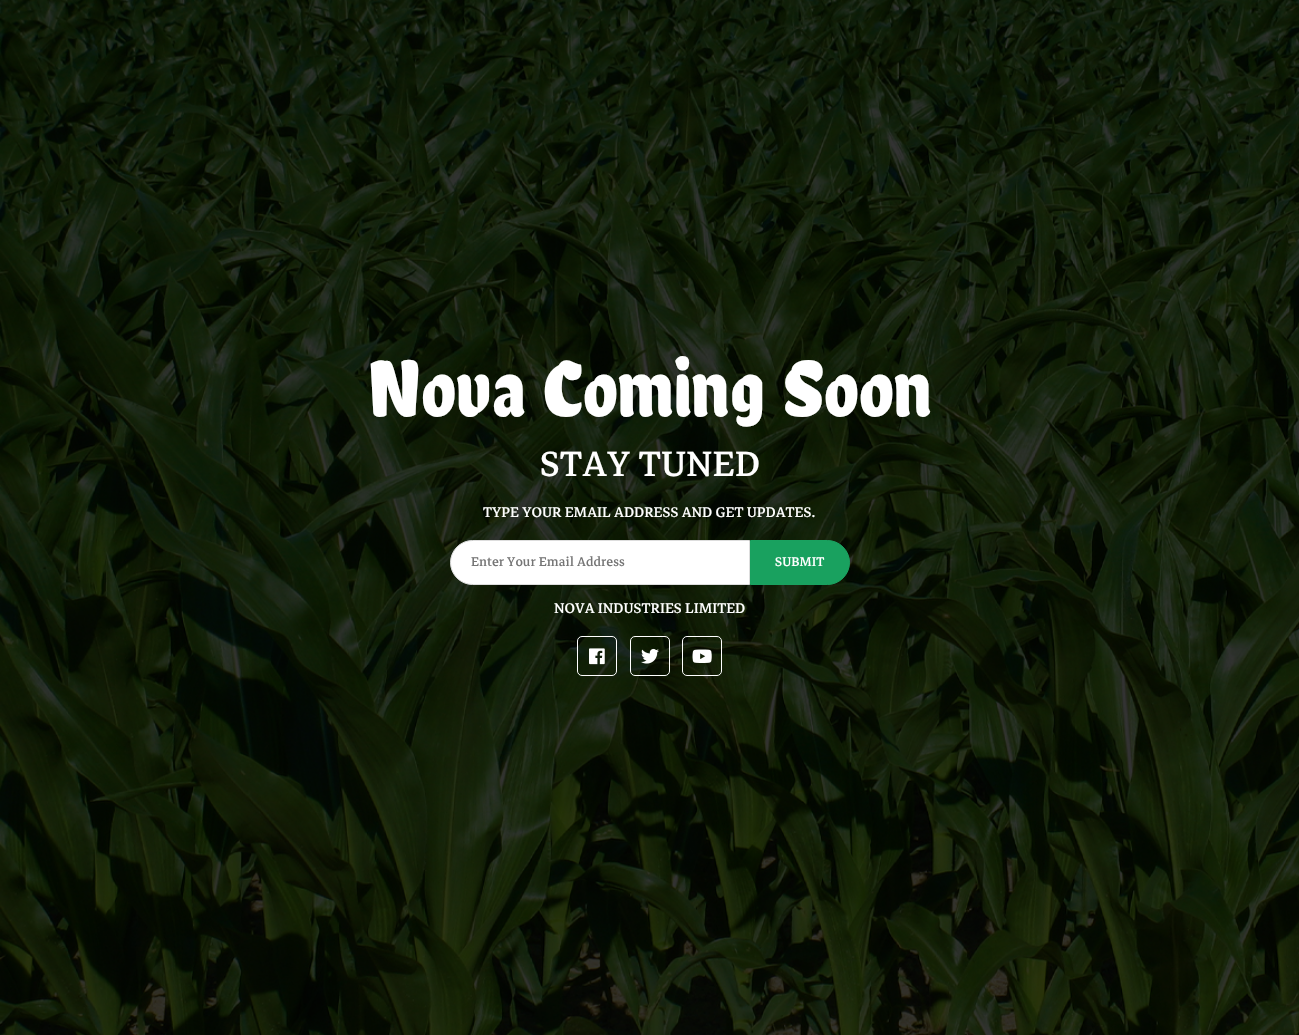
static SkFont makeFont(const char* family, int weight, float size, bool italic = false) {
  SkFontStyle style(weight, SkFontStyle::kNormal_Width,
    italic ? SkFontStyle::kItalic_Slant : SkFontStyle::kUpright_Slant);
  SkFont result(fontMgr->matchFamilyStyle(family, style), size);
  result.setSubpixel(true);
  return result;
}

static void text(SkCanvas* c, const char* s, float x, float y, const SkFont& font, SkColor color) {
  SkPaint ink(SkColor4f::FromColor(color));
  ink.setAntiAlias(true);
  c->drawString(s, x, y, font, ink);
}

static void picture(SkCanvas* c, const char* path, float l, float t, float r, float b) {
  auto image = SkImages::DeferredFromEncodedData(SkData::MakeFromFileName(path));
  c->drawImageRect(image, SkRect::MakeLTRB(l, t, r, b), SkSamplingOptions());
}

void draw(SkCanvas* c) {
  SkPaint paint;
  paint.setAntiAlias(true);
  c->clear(0xffffffff);
  picture(c, "img_01.png", 0, 0, 1299, 1035);
  SkFont face1 = makeFont("Chela One", 400, 80);
  text(c, "Nova Coming Soon", 368, 417, face1, 0xffffffff);
  SkFont face2 = makeFont("Markazi Text", 400, 50);
  text(c, "STAY TUNED", 540, 476, face2, 0xffffffff);
  SkFont face3 = makeFont("Markazi Text", 400, 20);
  text(c, "TYPE YOUR EMAIL ADDRESS AND GET UPDATES.", 483, 517, face3, 0xffffffff);
  paint.setColor(0xffffffff);
  c->drawPath(SkPathBuilder().moveTo(472.5f, 540.5f).lineTo(749.5f, 540.5f).lineTo(749.5f, 584.5f).lineTo(472.5f, 584.5f).cubicTo(460.5f, 584.5f, 450.5f, 574.5f, 450.5f, 562.5f).cubicTo(450.5f, 550.5f, 460.5f, 540.5f, 472.5f, 540.5f).close().detach(), paint);
  paint.setStyle(SkPaint::kStroke_Style);
  paint.setStrokeWidth(1);
  paint.setColor(0xffdddddd);
  c->drawPath(SkPathBuilder().moveTo(472.5f, 540.5f).lineTo(749.5f, 540.5f).lineTo(749.5f, 584.5f).lineTo(472.5f, 584.5f).cubicTo(460.5f, 584.5f, 450.5f, 574.5f, 450.5f, 562.5f).cubicTo(450.5f, 550.5f, 460.5f, 540.5f, 472.5f, 540.5f).close().detach(), paint);
  SkFont face4 = makeFont("Markazi Text", 400, 18);
  text(c, "Enter Your Email Address", 471, 566, face4, 0xff757575);
  paint.setStyle(SkPaint::kFill_Style);
  paint.setColor(0xff19a15f);
  c->drawPath(SkPathBuilder().moveTo(750.5f, 540.5f).lineTo(827.5f, 540.5f).cubicTo(839.5f, 540.5f, 849.5f, 550.5f, 849.5f, 562.5f).cubicTo(849.5f, 574.5f, 839.5f, 584.5f, 827.5f, 584.5f).lineTo(750.5f, 584.5f).close().detach(), paint);
  paint.setStyle(SkPaint::kStroke_Style);
  c->drawPath(SkPathBuilder().moveTo(750.5f, 540.5f).lineTo(827.5f, 540.5f).cubicTo(839.5f, 540.5f, 849.5f, 550.5f, 849.5f, 562.5f).cubicTo(849.5f, 574.5f, 839.5f, 584.5f, 827.5f, 584.5f).lineTo(750.5f, 584.5f).close().detach(), paint);
  text(c, "SUBMIT", 775, 566, face4, 0xffffffff);
  text(c, "NOVA INDUSTRIES LIMITED", 554, 613, face3, 0xffffffff);
  paint.setColor(0xffffffff);
  c->drawRoundRect(SkRect::MakeLTRB(577.5f, 636.5f, 616.5f, 675.5f), 4.5f, 4.5f, paint);
  picture(c, "img_02.png", 589, 648, 605, 665);
  c->drawRoundRect(SkRect::MakeLTRB(630.5f, 636.5f, 669.5f, 675.5f), 4.5f, 4.5f, paint);
  picture(c, "img_03.png", 641, 648, 659, 664);
  c->drawRoundRect(SkRect::MakeLTRB(682.5f, 636.5f, 721.5f, 675.5f), 4.5f, 4.5f, paint);
  picture(c, "img_04.png", 692, 649, 712, 663);
}
